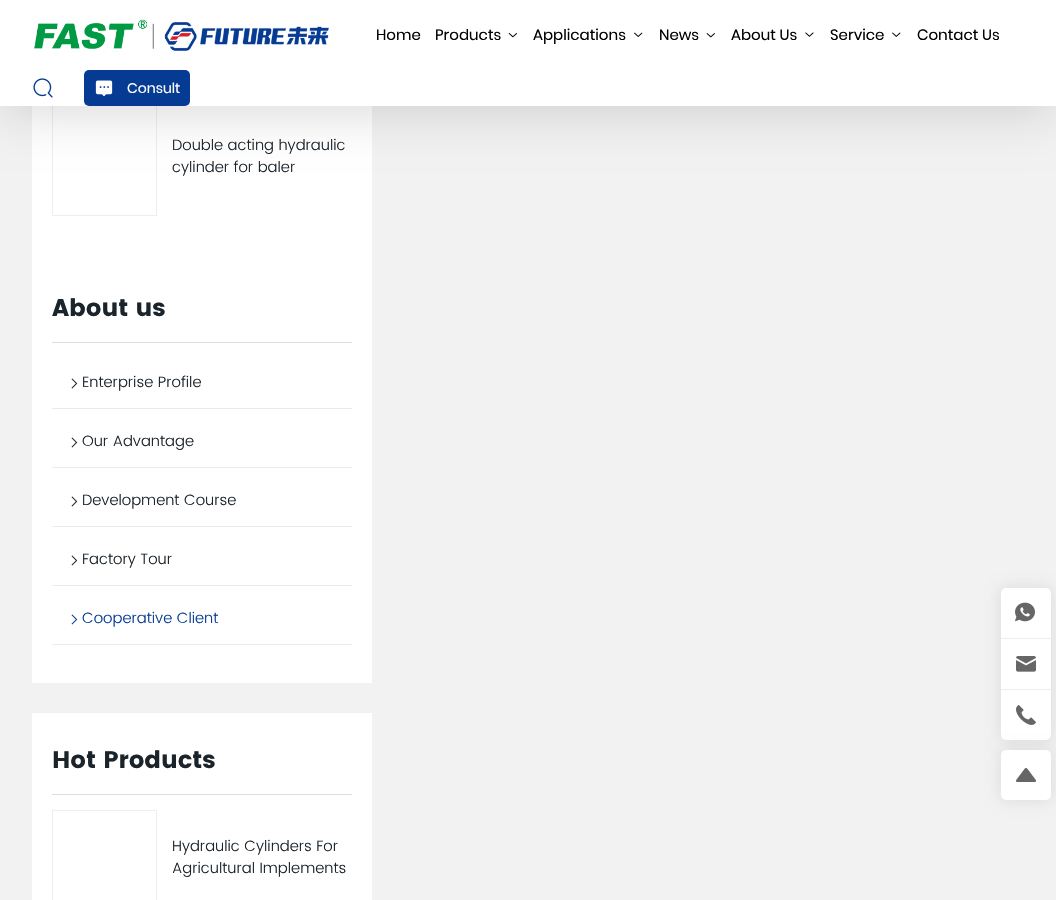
static SkFont makeFont(const char* family, int weight, float size, bool italic = false) {
  SkFontStyle style(weight, SkFontStyle::kNormal_Width,
    italic ? SkFontStyle::kItalic_Slant : SkFontStyle::kUpright_Slant);
  SkFont result(fontMgr->matchFamilyStyle(family, style), size);
  result.setSubpixel(true);
  return result;
}

static void text(SkCanvas* c, const char* s, float x, float y, const SkFont& font, SkColor color) {
  SkPaint ink(SkColor4f::FromColor(color));
  ink.setAntiAlias(true);
  c->drawString(s, x, y, font, ink);
}

static void box(SkCanvas* c, float l, float t, float r, float b, SkColor color) {
  SkPaint ink(SkColor4f::FromColor(color));
  ink.setAntiAlias(true);
  c->drawRect(SkRect::MakeLTRB(l, t, r, b), ink);
}

static void roundBox(SkCanvas* c, float l, float t, float r, float b, float radius, SkColor color) {
  SkPaint ink(SkColor4f::FromColor(color));
  ink.setAntiAlias(true);
  c->drawRoundRect(SkRect::MakeLTRB(l, t, r, b), radius, radius, ink);
}

static void picture(SkCanvas* c, const char* path, float l, float t, float r, float b) {
  auto image = SkImages::DeferredFromEncodedData(SkData::MakeFromFileName(path));
  c->drawImageRect(image, SkRect::MakeLTRB(l, t, r, b), SkSamplingOptions());
}

void draw(SkCanvas* c) {
  SkPaint paint;
  paint.setAntiAlias(true);
  c->clear(0xfff2f2f2);
  box(c, 32, 106, 372, 683, 0xffffffff);
  paint.setStyle(SkPaint::kStroke_Style);
  paint.setStrokeWidth(1);
  paint.setColor(0xffeeeeee);
  c->drawRect(SkRect::MakeLTRB(52.5f, 98.5f, 156.5f, 215.5f), paint);
  paint.setStyle(SkPaint::kFill_Style);
  paint.setColor(0x24000000);
  paint.setMaskFilter(SkMaskFilter::MakeBlur(kNormal_SkBlurStyle, 25));
  c->drawRect(SkRect::MakeLTRB(2, 12, 1054, 114), paint);
  paint.setMaskFilter(nullptr);
  box(c, 0, 0, 1056, 106, 0xffffffff);
  picture(c, "img_01.png", 34, 19, 329, 52);
  SkFont face1 = makeFont("Poppins", 400, 15);
  text(c, "Home", 376, 40, face1, 0xff000000);
  text(c, "Products", 435, 40, face1, 0xff000000);
  picture(c, "img_02.png", 508, 33, 517, 38);
  text(c, "Applications", 533, 40, face1, 0xff000000);
  picture(c, "img_03.png", 634, 32, 643, 37);
  text(c, "News", 659, 40, face1, 0xff000000);
  picture(c, "img_04.png", 706, 33, 715, 38);
  text(c, "About Us", 731, 40, face1, 0xff000000);
  picture(c, "img_05.png", 805, 32, 814, 37);
  text(c, "Service", 830, 40, face1, 0xff000000);
  picture(c, "img_06.png", 892, 32, 901, 37);
  text(c, "Contact Us", 917, 40, face1, 0xff000000);
  picture(c, "img_07.png", 33, 78, 53, 98);
  roundBox(c, 84, 70, 190, 106, 5, 0xff063b93);
  picture(c, "img_08.png", 95, 80, 113, 96);
  SkFont face2 = makeFont("Poppins", 400, 14);
  text(c, "Consult", 127, 93, face2, 0xffffffff);
  SkFont face3 = makeFont("Poppins", 300, 15);
  text(c, "Double acting hydraulic", 172, 150, face3, 0xff1b242b);
  text(c, "cylinder for baler", 172, 172, face3, 0xff1b242b);
  SkFont face4 = makeFont("Poppins", 700, 24);
  text(c, "About us", 52, 316, face4, 0xff1b242b);
  box(c, 52, 342, 352, 343, 0xffdddddd);
  box(c, 52, 408, 352, 409, 0xffebebeb);
  picture(c, "img_09.png", 71, 378, 78, 389);
  text(c, "Enterprise Profile", 82, 387, face3, 0xff1b242b);
  box(c, 52, 467, 352, 468, 0xffebebeb);
  picture(c, "img_09.png", 71, 437, 78, 448);
  text(c, "Our Advantage", 82, 446, face3, 0xff1b242b);
  box(c, 52, 526, 352, 527, 0xffebebeb);
  picture(c, "img_09.png", 71, 496, 78, 507);
  text(c, "Development Course", 82, 505, face3, 0xff1b242b);
  box(c, 52, 585, 352, 586, 0xffebebeb);
  picture(c, "img_09.png", 71, 555, 78, 566);
  text(c, "Factory Tour", 82, 564, face3, 0xff1b242b);
  box(c, 52, 644, 352, 645, 0xffebebeb);
  picture(c, "img_10.png", 71, 614, 78, 625);
  text(c, "Cooperative Client", 82, 623, face3, 0xff063b93);
  box(c, 32, 713, 372, 900, 0xffffffff);
  text(c, "Hot Products", 52, 768, face4, 0xff1b242b);
  box(c, 52, 794, 352, 795, 0xffdddddd);
  paint.setStyle(SkPaint::kStroke_Style);
  paint.setColor(0xffeeeeee);
  c->drawRect(SkRect::MakeLTRB(52.5f, 810.5f, 156.5f, 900.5f), paint);
  text(c, "Hydraulic Cylinders For", 172, 851, face3, 0xff1b242b);
  text(c, "Agricultural Implements", 172, 873, face3, 0xff1b242b);
  paint.setStyle(SkPaint::kFill_Style);
  paint.setColor(0x1a000000);
  paint.setMaskFilter(SkMaskFilter::MakeBlur(kNormal_SkBlurStyle, 7.5f));
  c->drawRoundRect(SkRect::MakeLTRB(1001, 588, 1051, 740), 5, 5, paint);
  paint.setMaskFilter(nullptr);
  roundBox(c, 1001, 588, 1051, 740, 5, 0xffffffff);
  box(c, 1001, 638, 1051, 639, 0xffeeeeee);
  picture(c, "img_11.png", 1015, 602, 1035, 622);
  box(c, 1001, 689, 1051, 690, 0xffeeeeee);
  picture(c, "img_12.png", 1016, 656, 1036, 672);
  picture(c, "img_13.png", 1016, 705, 1036, 725);
  paint.setMaskFilter(SkMaskFilter::MakeBlur(kNormal_SkBlurStyle, 7.5f));
  c->drawRoundRect(SkRect::MakeLTRB(1001, 750, 1051, 800), 5, 5, paint);
  paint.setMaskFilter(nullptr);
  roundBox(c, 1001, 750, 1051, 800, 5, 0xffffffff);
  picture(c, "img_14.png", 1016, 768, 1036, 782);
}
